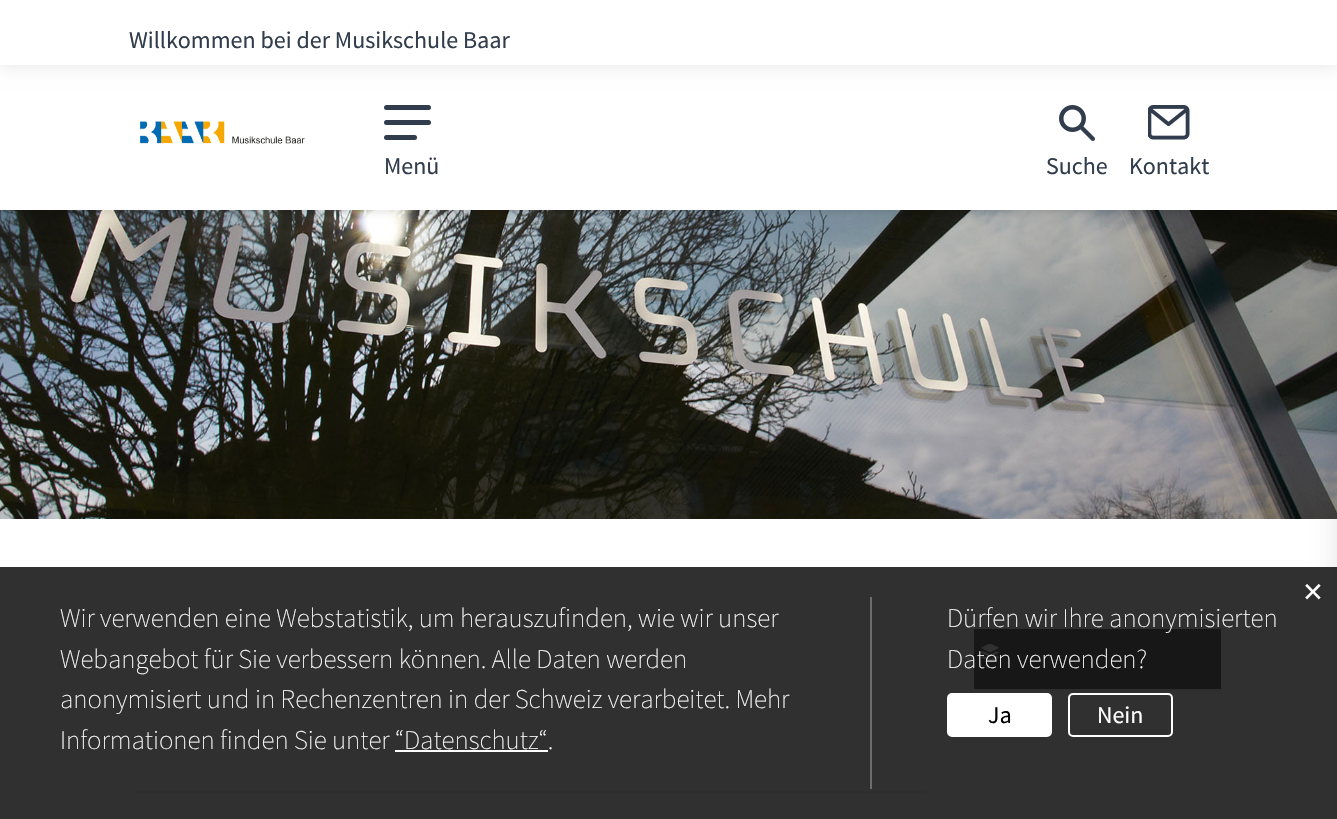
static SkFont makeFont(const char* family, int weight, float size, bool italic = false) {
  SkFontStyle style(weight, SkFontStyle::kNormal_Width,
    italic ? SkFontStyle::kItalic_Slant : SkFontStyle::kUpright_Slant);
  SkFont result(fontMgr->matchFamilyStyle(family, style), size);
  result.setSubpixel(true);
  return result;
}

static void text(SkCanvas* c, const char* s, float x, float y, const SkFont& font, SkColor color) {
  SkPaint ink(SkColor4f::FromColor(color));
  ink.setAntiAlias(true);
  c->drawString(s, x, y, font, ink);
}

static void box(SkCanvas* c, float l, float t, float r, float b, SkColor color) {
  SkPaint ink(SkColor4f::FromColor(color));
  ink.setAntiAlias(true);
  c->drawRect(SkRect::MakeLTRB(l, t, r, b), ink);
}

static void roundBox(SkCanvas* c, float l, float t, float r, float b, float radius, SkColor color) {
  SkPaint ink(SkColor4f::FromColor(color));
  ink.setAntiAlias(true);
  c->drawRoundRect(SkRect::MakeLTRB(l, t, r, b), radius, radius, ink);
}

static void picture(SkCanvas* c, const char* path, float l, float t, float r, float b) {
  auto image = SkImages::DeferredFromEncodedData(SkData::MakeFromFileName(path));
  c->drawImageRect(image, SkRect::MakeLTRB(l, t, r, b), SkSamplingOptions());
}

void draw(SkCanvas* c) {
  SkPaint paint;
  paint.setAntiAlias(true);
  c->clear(0xffffffff);
  picture(c, "img_04.png", 0, 210, 1337, 519);
  paint.setColor(0x1c000000);
  paint.setMaskFilter(SkMaskFilter::MakeBlur(kNormal_SkBlurStyle, 4));
  c->drawRect(SkRect::MakeLTRB(-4, -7, 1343, 212), paint);
  paint.setMaskFilter(nullptr);
  box(c, 0, 0, 1337, 210, 0xffffffff);
  c->save();
  c->clipPath(SkPathBuilder(SkPathFillType::kEvenOdd).moveTo(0, 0).lineTo(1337, 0).lineTo(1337, 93).lineTo(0, 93).close().moveTo(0, 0).lineTo(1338, 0).lineTo(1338, 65).lineTo(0, 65).close().detach(), true);
  paint.setMaskFilter(SkMaskFilter::MakeBlur(kNormal_SkBlurStyle, 9));
  c->drawRect(SkRect::MakeLTRB(0, 0, 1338, 65), paint);
  paint.setMaskFilter(nullptr);
  c->restore();
  SkFont face1 = makeFont("Source Sans Pro", 400, 24);
  text(c, "Willkommen bei der Musikschule Baar", 129, 48, face1, 0xff313d4c);
  picture(c, "img_01.png", 140, 121, 305, 144);
  roundBox(c, 384, 105, 431, 110, 2.5f, 0xff313d4c);
  roundBox(c, 384, 120, 431, 125, 2.5f, 0xff313d4c);
  roundBox(c, 384, 135, 417, 140, 2.5f, 0xff313d4c);
  text(c, "Menü", 384, 174, face1, 0xff313d4c);
  picture(c, "img_02.png", 1059, 105, 1095, 141);
  text(c, "Suche", 1046, 174, face1, 0xff313d4c);
  picture(c, "img_03.png", 1148, 105, 1190, 140);
  text(c, "Kontakt", 1129, 174, face1, 0xff313d4c);
  paint.setMaskFilter(SkMaskFilter::MakeBlur(kNormal_SkBlurStyle, 13));
  c->drawRect(SkRect::MakeLTRB(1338, 236, 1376, 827), paint);
  paint.setMaskFilter(nullptr);
  box(c, 974, 629, 1221, 689, 0xff000000);
  box(c, 974, 689, 1221, 691, 0xffe4e4e4);
  picture(c, "img_05.png", 981, 644, 999, 662);
  box(c, 132, 791, 926, 793, 0xffe4e4e4);
  box(c, 0, 567, 1337, 819, 0xe6191919);
  SkFont face2 = makeFont("Liberation Sans", 400, 34);
  text(c, "×", 1303, 603, face2, 0xffffffff);
  box(c, 870, 597, 872, 789, 0xff6d6d6d);
  SkFont face3 = makeFont("Source Sans Pro", 200, 27);
  text(c, "Wir verwenden eine Webstatistik, um herauszufinden, wie wir unser", 60, 627, face3, 0xffffffff);
  text(c, "Webangebot für Sie verbessern können. Alle Daten werden", 60, 668, face3, 0xffffffff);
  text(c, "anonymisiert und in Rechenzentren in der Schweiz verarbeitet. Mehr", 60, 708, face3, 0xffffffff);
  text(c, "Informationen finden Sie unter “Datenschutz“.", 60, 749, face3, 0xffffffff);
  box(c, 395, 750, 548, 752, 0xffffffff);
  text(c, "Dürfen wir Ihre anonymisierten", 947, 627, face3, 0xffffffff);
  text(c, "Daten verwenden?", 947, 668, face3, 0xffffffff);
  paint.setColor(0xffffffff);
  c->drawRoundRect(SkRect::MakeLTRB(948, 694, 1051, 736), 4, 4, paint);
  paint.setStyle(SkPaint::kStroke_Style);
  paint.setStrokeWidth(2);
  c->drawRoundRect(SkRect::MakeLTRB(948, 694, 1051, 736), 4, 4, paint);
  text(c, "Ja", 988, 723, face1, 0xff000000);
  c->drawRoundRect(SkRect::MakeLTRB(1069, 694, 1172, 736), 4, 4, paint);
  text(c, "Nein", 1097, 723, face1, 0xffffffff);
}
